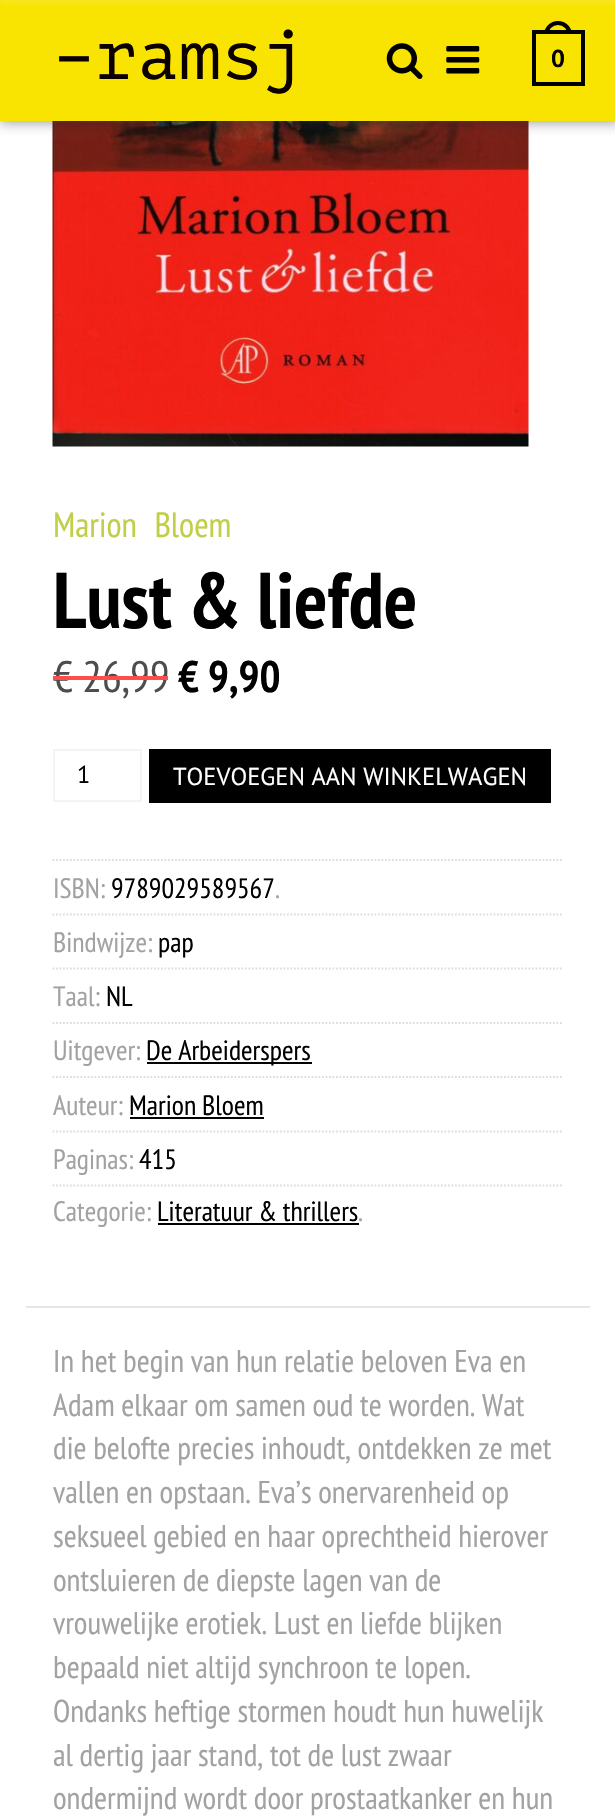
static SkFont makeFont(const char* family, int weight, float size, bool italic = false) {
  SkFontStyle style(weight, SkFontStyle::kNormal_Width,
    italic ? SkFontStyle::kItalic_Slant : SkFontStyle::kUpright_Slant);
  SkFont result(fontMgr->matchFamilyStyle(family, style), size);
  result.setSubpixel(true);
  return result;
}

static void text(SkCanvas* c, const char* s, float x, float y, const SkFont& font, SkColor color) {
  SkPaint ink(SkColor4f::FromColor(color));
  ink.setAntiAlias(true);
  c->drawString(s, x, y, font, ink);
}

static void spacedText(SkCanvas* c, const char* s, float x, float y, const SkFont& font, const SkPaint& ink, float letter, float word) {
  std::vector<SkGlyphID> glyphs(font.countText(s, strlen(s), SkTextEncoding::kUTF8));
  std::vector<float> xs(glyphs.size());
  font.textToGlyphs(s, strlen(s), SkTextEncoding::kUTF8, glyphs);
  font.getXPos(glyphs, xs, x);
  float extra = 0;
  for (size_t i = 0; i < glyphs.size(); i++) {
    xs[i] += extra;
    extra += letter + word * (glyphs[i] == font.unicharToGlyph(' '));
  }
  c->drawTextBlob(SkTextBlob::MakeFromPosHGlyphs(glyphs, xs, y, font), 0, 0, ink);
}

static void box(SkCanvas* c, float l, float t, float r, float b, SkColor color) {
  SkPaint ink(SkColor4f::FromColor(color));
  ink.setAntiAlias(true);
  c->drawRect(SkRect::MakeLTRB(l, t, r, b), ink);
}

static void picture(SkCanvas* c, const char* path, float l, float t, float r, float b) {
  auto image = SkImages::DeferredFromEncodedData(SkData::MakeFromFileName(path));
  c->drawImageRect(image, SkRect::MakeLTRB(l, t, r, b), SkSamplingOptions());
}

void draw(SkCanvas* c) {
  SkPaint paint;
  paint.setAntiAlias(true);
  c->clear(0xffffffff);
  picture(c, "img_03.png", 52, 121, 529, 447);
  paint.setColor(0x70272727);
  paint.setMaskFilter(SkMaskFilter::MakeBlur(kNormal_SkBlurStyle, 6));
  c->drawRect(SkRect::MakeLTRB(0, -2, 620, 123), paint);
  paint.setMaskFilter(nullptr);
  box(c, 0, 0, 615, 121, 0xfff9e300);
  paint.setColor(0x80f7f7f7);
  paint.setMaskFilter(SkMaskFilter::MakeBlur(kNormal_SkBlurStyle, 4.5f));
  c->drawRect(SkRect::MakeLTRB(0, -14, 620, -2), paint);
  paint.setMaskFilter(nullptr);
  SkFont face1 = makeFont("PT Mono", 400, 70);
  text(c, "–ramsj", 53, 79, face1, 0xff0a0000);
  picture(c, "img_01.png", 386, 43, 423, 79);
  picture(c, "img_02.png", 446, 46, 480, 74);
  paint.setStyle(SkPaint::kStroke_Style);
  paint.setStrokeWidth(4);
  paint.setColor(0xff000000);
  c->drawCircle(558, 35, 12, paint);
  box(c, 544, 34, 572, 49, 0xfff9e300);
  c->drawRect(SkRect::MakeLTRB(534, 32, 583, 84), paint);
  SkFont face2 = makeFont("PT Sans", 700, 24.5f);
  text(c, "0", 551, 67, face2, 0xff000000);
  SkFont face3 = makeFont("PT Sans Narrow", 400, 35);
  paint.setStyle(SkPaint::kFill_Style);
  paint.setColor(0xffc1ce48);
  spacedText(c, "Marion Bloem", 53, 537, face3, paint, 0, 10);
  SkFont face4 = makeFont("PT Sans Narrow", 700, 78.75f);
  text(c, "Lust & liefde", 53, 628, face4, 0xff000000);
  SkFont face5 = makeFont("PT Sans Narrow", 400, 44);
  text(c, "€ 26,99", 53, 692, face5, 0xff4d4d4d);
  box(c, 53, 676, 168, 680, 0xffff4d4d);
  SkFont face6 = makeFont("PT Sans Narrow", 700, 44);
  text(c, "€ 9,90", 178, 692, face6, 0xff000000);
  paint.setStyle(SkPaint::kStroke_Style);
  paint.setStrokeWidth(2);
  paint.setColor(0xfff4f4f4);
  c->drawRect(SkRect::MakeLTRB(54, 750, 141, 801), paint);
  SkFont face7 = makeFont("PT Sans", 400, 24.5f);
  text(c, "1", 77, 783, face7, 0xff000000);
  box(c, 149, 749, 551, 803, 0xff000000);
  text(c, "TOEVOEGEN AAN WINKELWAGEN", 173, 785, face7, 0xffffffff);
  paint.setStrokeWidth(1.8f);
  paint.setColor(0xffdddddd);
  paint.setPathEffect(SkDashPathEffect::Make({{1.75f, 1.75f}}, 0));
  c->drawPath(SkPathBuilder().moveTo(52.5f, 860).lineTo(563.5f, 860).detach(), paint);
  paint.setPathEffect(nullptr);
  paint.setPathEffect(SkDashPathEffect::Make({{1.75f, 1.75f}}, 0));
  c->drawPath(SkPathBuilder().moveTo(52.5f, 914.5f).lineTo(563.5f, 914.5f).detach(), paint);
  paint.setPathEffect(nullptr);
  SkFont face8 = makeFont("PT Sans Narrow", 400, 28);
  text(c, "ISBN:", 53, 898, face8, 0xffa2a2a2);
  text(c, "9789029589567", 111, 898, face8, 0xff000000);
  text(c, ".", 275, 898, face8, 0xffa2a2a2);
  paint.setPathEffect(SkDashPathEffect::Make({{1.75f, 1.75f}}, 0));
  c->drawPath(SkPathBuilder().moveTo(52.5f, 968.5f).lineTo(563.5f, 968.5f).detach(), paint);
  paint.setPathEffect(nullptr);
  text(c, "Bindwijze:", 53, 952, face8, 0xffa2a2a2);
  text(c, "pap", 158, 952, face8, 0xff000000);
  paint.setPathEffect(SkDashPathEffect::Make({{1.75f, 1.75f}}, 0));
  c->drawPath(SkPathBuilder().moveTo(52.5f, 1023).lineTo(563.5f, 1023).detach(), paint);
  paint.setPathEffect(nullptr);
  text(c, "Taal:", 53, 1006, face8, 0xffa2a2a2);
  text(c, "NL", 106, 1006, face8, 0xff000000);
  paint.setPathEffect(SkDashPathEffect::Make({{1.75f, 1.75f}}, 0));
  c->drawPath(SkPathBuilder().moveTo(52.5f, 1077).lineTo(563.5f, 1077).detach(), paint);
  paint.setPathEffect(nullptr);
  text(c, "Uitgever:", 53, 1060, face8, 0xffa2a2a2);
  box(c, 147, 1062, 312, 1064, 0xff000000);
  text(c, "De Arbeiderspers", 146, 1060, face8, 0xff000000);
  paint.setPathEffect(SkDashPathEffect::Make({{1.75f, 1.75f}}, 0));
  c->drawPath(SkPathBuilder().moveTo(52.5f, 1131.5f).lineTo(563.5f, 1131.5f).detach(), paint);
  paint.setPathEffect(nullptr);
  text(c, "Auteur:", 53, 1115, face8, 0xffa2a2a2);
  text(c, "Marion Bloem", 129, 1115, face8, 0xff000000);
  box(c, 130, 1117, 264, 1119, 0xff000000);
  paint.setPathEffect(SkDashPathEffect::Make({{1.75f, 1.75f}}, 0));
  c->drawPath(SkPathBuilder().moveTo(52.5f, 1185.5f).lineTo(563.5f, 1185.5f).detach(), paint);
  paint.setPathEffect(nullptr);
  text(c, "Paginas:", 53, 1169, face8, 0xffa2a2a2);
  text(c, "415", 139, 1169, face8, 0xff000000);
  text(c, "Categorie:", 53, 1221, face8, 0xffa2a2a2);
  text(c, "Literatuur & thrillers", 157, 1221, face8, 0xff000000);
  box(c, 158, 1223, 359, 1225, 0xff000000);
  text(c, ".", 358, 1221, face8, 0xffa2a2a2);
  box(c, 26, 1306, 590, 1308, 0xffe6e6e6);
  SkFont face9 = makeFont("PT Sans Narrow", 400, 31.5f);
  text(c, "In het begin van hun relatie beloven Eva en", 53, 1372, face9, 0xffa2a2a2);
  text(c, "Adam elkaar om samen oud te worden. Wat", 53, 1416, face9, 0xffa2a2a2);
  text(c, "die belofte precies inhoudt, ontdekken ze met", 53, 1459, face9, 0xffa2a2a2);
  text(c, "vallen en opstaan. Eva’s onervarenheid op", 53, 1503, face9, 0xffa2a2a2);
  text(c, "seksueel gebied en haar oprechtheid hierover", 53, 1547, face9, 0xffa2a2a2);
  text(c, "ontsluieren de diepste lagen van de", 53, 1591, face9, 0xffa2a2a2);
  text(c, "vrouwelijke erotiek. Lust en liefde blijken", 53, 1634, face9, 0xffa2a2a2);
  text(c, "bepaald niet altijd synchroon te lopen.", 53, 1678, face9, 0xffa2a2a2);
  text(c, "Ondanks heftige stormen houdt hun huwelijk", 53, 1722, face9, 0xffa2a2a2);
  text(c, "al dertig jaar stand, tot de lust zwaar", 53, 1766, face9, 0xffa2a2a2);
  text(c, "ondermijnd wordt door prostaatkanker en hun", 53, 1809, face9, 0xffa2a2a2);
}
